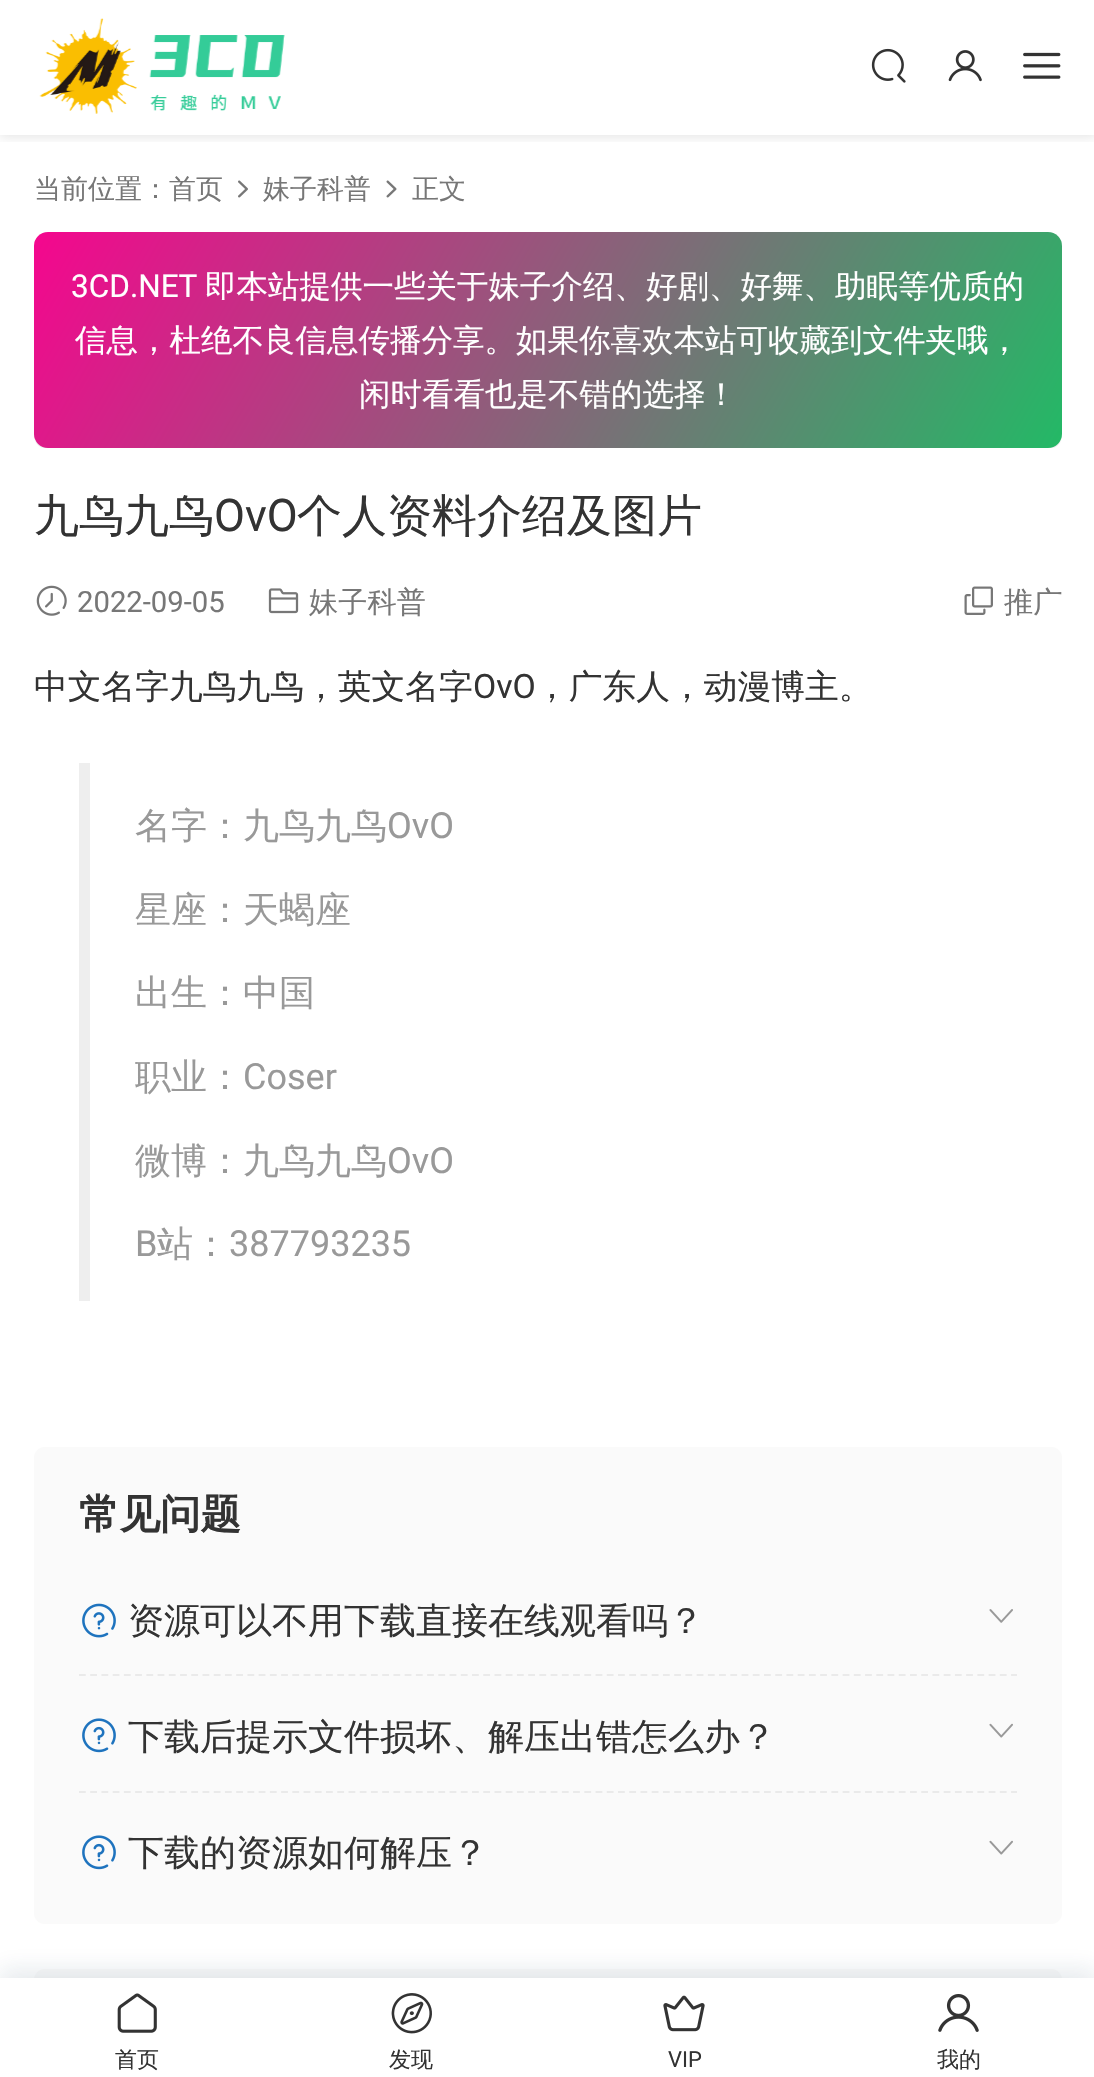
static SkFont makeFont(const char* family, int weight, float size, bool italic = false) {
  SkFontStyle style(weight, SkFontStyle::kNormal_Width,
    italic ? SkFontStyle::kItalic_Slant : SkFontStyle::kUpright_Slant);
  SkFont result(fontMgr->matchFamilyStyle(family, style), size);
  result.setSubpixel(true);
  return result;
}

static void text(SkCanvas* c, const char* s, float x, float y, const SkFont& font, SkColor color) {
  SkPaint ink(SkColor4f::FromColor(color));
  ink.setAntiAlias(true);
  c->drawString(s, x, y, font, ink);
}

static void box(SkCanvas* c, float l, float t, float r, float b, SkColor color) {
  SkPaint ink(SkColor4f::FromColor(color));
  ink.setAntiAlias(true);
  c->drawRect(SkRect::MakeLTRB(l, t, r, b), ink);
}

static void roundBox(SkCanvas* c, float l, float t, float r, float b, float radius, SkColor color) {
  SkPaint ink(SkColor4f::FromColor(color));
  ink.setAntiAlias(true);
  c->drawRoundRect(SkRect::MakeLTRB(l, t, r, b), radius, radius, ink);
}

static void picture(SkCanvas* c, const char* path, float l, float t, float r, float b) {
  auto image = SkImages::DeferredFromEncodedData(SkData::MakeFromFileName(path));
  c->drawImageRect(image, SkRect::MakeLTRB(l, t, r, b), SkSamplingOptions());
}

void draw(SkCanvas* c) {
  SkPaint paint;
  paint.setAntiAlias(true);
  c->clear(0xffffffff);
  c->save();
  c->clipRect(SkRect::MakeLTRB(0, 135, 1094, 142));
  paint.setColor(0x1a000000);
  paint.setMaskFilter(SkMaskFilter::MakeBlur(kNormal_SkBlurStyle, 5.5f));
  c->drawRect(SkRect::MakeLTRB(0, 2, 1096, 137), paint);
  paint.setMaskFilter(nullptr);
  c->restore();
  picture(c, "img_01.png", 39, 18, 285, 114);
  picture(c, "img_02.png", 871, 48, 906, 83);
  picture(c, "img_03.png", 948, 50, 982, 82);
  picture(c, "img_04.png", 1023, 52, 1061, 79);
  SkFont face1 = makeFont("WenQuanYi Zen Hei", 500, 27);
  text(c, "当前位置：首页", 34, 198, face1, 0xff777777);
  picture(c, "img_05.png", 238, 180, 248, 198);
  text(c, "妹子科普", 263, 198, face1, 0xff777777);
  picture(c, "img_06.png", 386, 180, 397, 198);
  text(c, "正文", 412, 198, face1, 0xff777777);
  c->save();
  c->clipPath(SkPathBuilder().moveTo(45, 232).lineTo(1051, 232).cubicTo(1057, 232, 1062, 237, 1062, 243).lineTo(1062, 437).cubicTo(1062, 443, 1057, 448, 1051, 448).lineTo(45, 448).cubicTo(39, 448, 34, 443, 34, 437).lineTo(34, 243).cubicTo(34, 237, 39, 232, 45, 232).close().detach(), true);
  paint.setColor(0x1a080b0e);
  paint.setMaskFilter(SkMaskFilter::MakeBlur(kNormal_SkBlurStyle, 2.5f));
  c->drawRoundRect(SkRect::MakeLTRB(36, 239, 1060, 452), 11, 11, paint);
  paint.setMaskFilter(nullptr);
  c->restore();
  {
    const SkColor colors[] = {0xfff5068e, 0xff23b966};
    const float stops[] = {0, 1};
    const SkPoint ends[] = {{116, 90}, {980, 589}};
    paint.setShader(SkGradientShader::MakeLinear(ends, colors, stops, 2, SkTileMode::kClamp));
    paint.setAlpha(255);
  }
  c->drawRoundRect(SkRect::MakeLTRB(34, 232, 1062, 448), 14, 14, paint);
  SkFont face2 = makeFont("Roboto", 400, 31.5f);
  text(c, "3CD.NET", 71, 297, face2, 0xffffffff);
  SkFont face3 = makeFont("WenQuanYi Zen Hei", 500, 31.5f);
  text(c, "即本站提供一些关于妹子介绍、好剧、好舞、助眠等优质的", 205, 297, face3, 0xffffffff);
  text(c, "信息，杜绝不良信息传播分享。如果你喜欢本站可收藏到文件夹哦，", 75, 351, face3, 0xffffffff);
  text(c, "闲时看看也是不错的选择！", 359, 405, face3, 0xffffffff);
  SkFont face4 = makeFont("WenQuanYi Zen Hei", 500, 45);
  text(c, "九鸟九鸟", 34, 531, face4, 0xff333333);
  SkFont face5 = makeFont("Roboto", 400, 45);
  text(c, "OvO", 214, 531, face5, 0xff333333);
  text(c, "个人资料介绍及图片", 297, 531, face4, 0xff333333);
  picture(c, "img_07.png", 36, 585, 67, 616);
  SkFont face6 = makeFont("Roboto", 400, 29.25f);
  text(c, "2022-09-05", 77, 612, face6, 0xff777777);
  picture(c, "img_08.png", 268, 588, 299, 614);
  SkFont face7 = makeFont("WenQuanYi Zen Hei", 500, 29.25f);
  text(c, "妹子科普", 309, 612, face7, 0xff777777);
  picture(c, "img_09.png", 964, 586, 993, 615);
  text(c, "推广", 1004, 612, face7, 0xff777777);
  SkFont face8 = makeFont("WenQuanYi Zen Hei", 500, 33.75f);
  text(c, "中文名字九鸟九鸟，英文名字", 34, 698, face8, 0xff333333);
  SkFont face9 = makeFont("Roboto", 400, 33.75f);
  text(c, "OvO", 473, 698, face9, 0xff333333);
  text(c, "，广东人，动漫博主。", 535, 698, face8, 0xff333333);
  box(c, 79, 763, 90, 1301, 0xffeeeeee);
  SkFont face10 = makeFont("WenQuanYi Zen Hei", 500, 36);
  text(c, "名字：九鸟九鸟", 135, 838, face10, 0xff999999);
  SkFont face11 = makeFont("Roboto", 400, 36);
  text(c, "OvO", 387, 838, face11, 0xff999999);
  text(c, "星座：天蝎座", 135, 922, face10, 0xff999999);
  text(c, "出生：中国", 135, 1005, face10, 0xff999999);
  text(c, "职业：", 135, 1089, face10, 0xff999999);
  text(c, "Coser", 243, 1089, face11, 0xff999999);
  text(c, "微博：九鸟九鸟", 135, 1173, face10, 0xff999999);
  text(c, "OvO", 387, 1173, face11, 0xff999999);
  text(c, "B", 135, 1256, face11, 0xff999999);
  text(c, "站：", 157, 1256, face10, 0xff999999);
  text(c, "387793235", 229, 1256, face11, 0xff999999);
  roundBox(c, 34, 1447, 1062, 1924, 11, 0xfffafafa);
  SkFont face12 = makeFont("WenQuanYi Zen Hei", 700, 40.5f);
  text(c, "常见问题", 79, 1528, face12, 0xff333333);
  paint.setStyle(SkPaint::kStroke_Style);
  paint.setStrokeWidth(2.2f);
  paint.setShader(nullptr);
  paint.setColor(0xffeaeaea);
  paint.setPathEffect(SkDashPathEffect::Make({{6.75f, 4.48f}}, 0));
  c->drawPath(SkPathBuilder().moveTo(79, 1675).lineTo(1017, 1675).detach(), paint);
  paint.setPathEffect(nullptr);
  picture(c, "img_10.png", 82, 1603, 116, 1638);
  text(c, "资源可以不用下载直接在线观看吗？", 128, 1633, face10, 0xff333333);
  picture(c, "img_11.png", 989, 1609, 1013, 1623);
  paint.setPathEffect(SkDashPathEffect::Make({{6.75f, 4.48f}}, 0));
  c->drawPath(SkPathBuilder().moveTo(79, 1792).lineTo(1017, 1792).detach(), paint);
  paint.setPathEffect(nullptr);
  picture(c, "img_12.png", 82, 1718, 116, 1753);
  text(c, "下载后提示文件损坏、解压出错怎么办？", 128, 1749, face10, 0xff333333);
  picture(c, "img_13.png", 989, 1723, 1013, 1738);
  picture(c, "img_12.png", 82, 1835, 116, 1870);
  text(c, "下载的资源如何解压？", 128, 1865, face10, 0xff333333);
  picture(c, "img_13.png", 989, 1840, 1013, 1855);
  roundBox(c, 34, 1969, 1062, 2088, 11, 0xfffafafa);
  paint.setStyle(SkPaint::kFill_Style);
  paint.setColor(0x1a113a5d);
  paint.setMaskFilter(SkMaskFilter::MakeBlur(kNormal_SkBlurStyle, 11));
  c->drawRect(SkRect::MakeLTRB(0, 1969, 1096, 2070), paint);
  paint.setMaskFilter(nullptr);
  box(c, 0, 1978, 1094, 2077, 0xffffffff);
  picture(c, "img_14.png", 117, 1993, 157, 2033);
  SkFont face13 = makeFont("WenQuanYi Zen Hei", 500, 22);
  text(c, "首页", 115, 2067, face13, 0xff333333);
  picture(c, "img_15.png", 391, 1993, 432, 2034);
  text(c, "发现", 389, 2067, face13, 0xff333333);
  picture(c, "img_16.png", 663, 1995, 705, 2032);
  SkFont face14 = makeFont("Roboto", 400, 22);
  text(c, "VIP", 668, 2067, face14, 0xff333333);
  picture(c, "img_17.png", 938, 1994, 979, 2032);
  text(c, "我的", 937, 2067, face13, 0xff333333);
}
